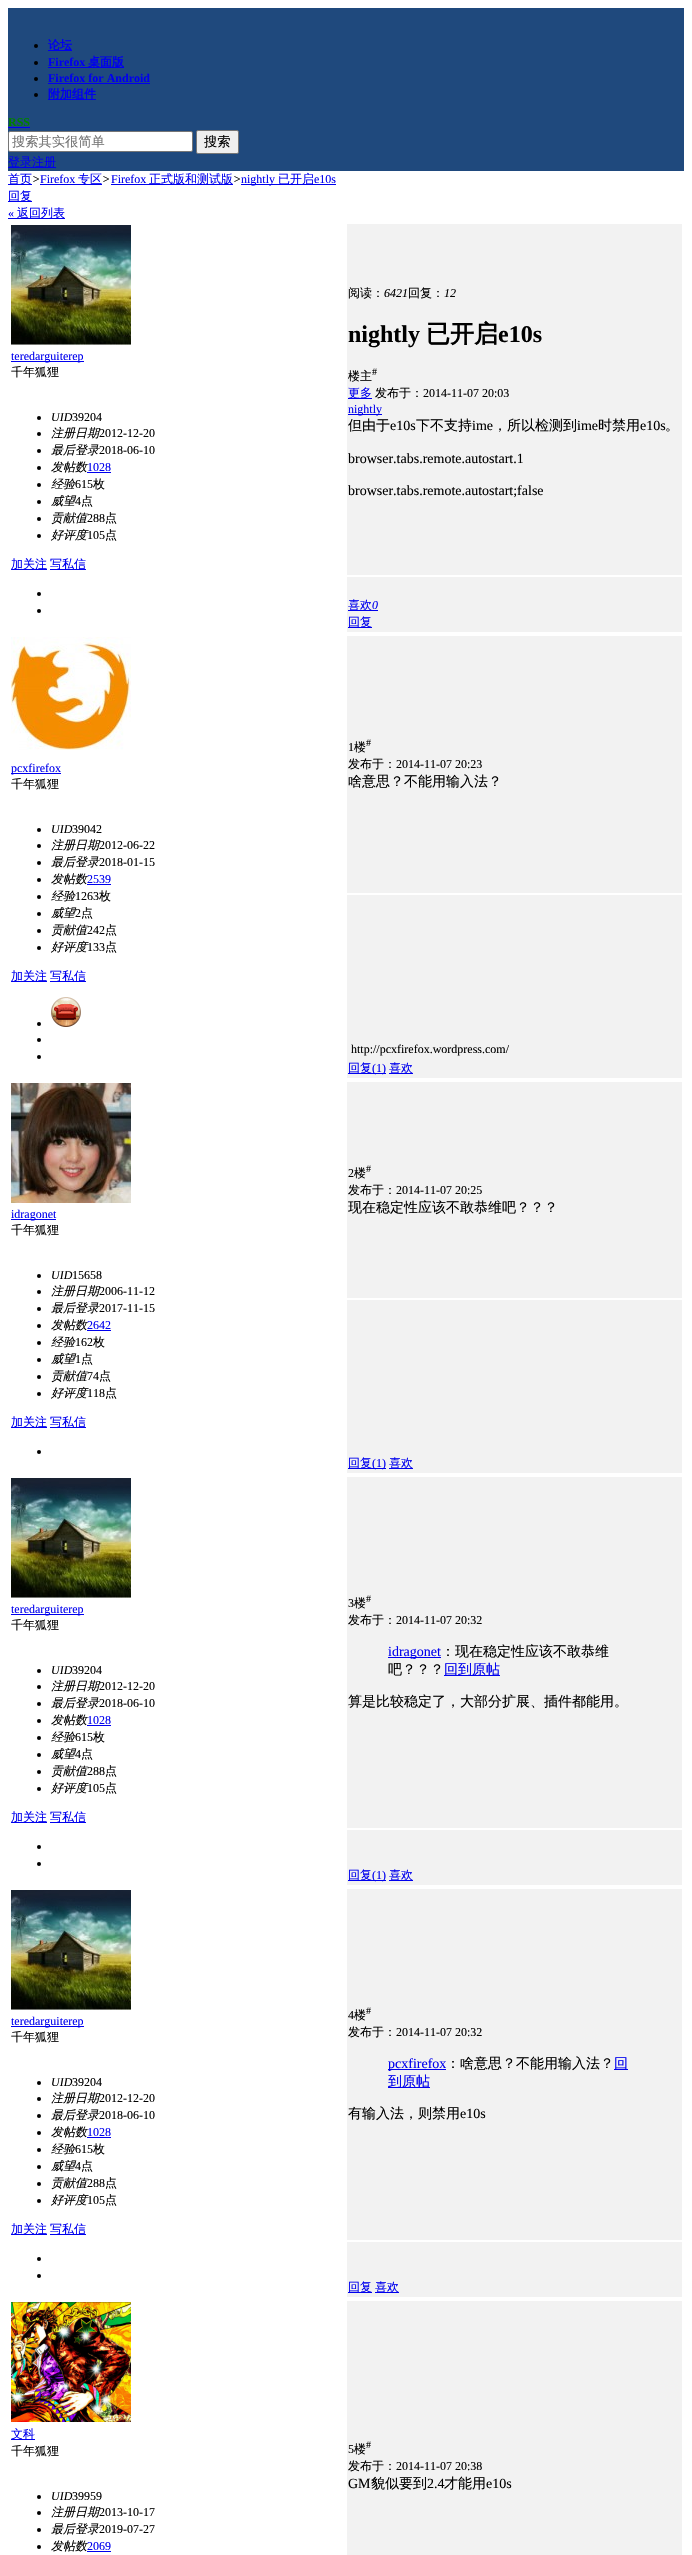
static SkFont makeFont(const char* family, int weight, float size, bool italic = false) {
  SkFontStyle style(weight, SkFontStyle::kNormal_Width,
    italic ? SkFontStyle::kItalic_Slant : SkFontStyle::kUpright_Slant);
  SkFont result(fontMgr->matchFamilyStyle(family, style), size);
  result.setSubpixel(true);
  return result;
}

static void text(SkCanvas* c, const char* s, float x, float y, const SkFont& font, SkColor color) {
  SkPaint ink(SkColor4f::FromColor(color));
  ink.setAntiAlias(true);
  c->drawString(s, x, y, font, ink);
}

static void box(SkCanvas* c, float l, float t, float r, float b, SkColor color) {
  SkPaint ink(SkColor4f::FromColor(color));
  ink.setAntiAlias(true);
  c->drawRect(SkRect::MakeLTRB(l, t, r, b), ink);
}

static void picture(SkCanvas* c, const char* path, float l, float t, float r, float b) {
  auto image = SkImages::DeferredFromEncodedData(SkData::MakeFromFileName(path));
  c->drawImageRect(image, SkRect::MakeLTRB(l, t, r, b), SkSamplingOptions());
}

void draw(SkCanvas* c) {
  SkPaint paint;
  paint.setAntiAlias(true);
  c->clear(0xffffffff);
  box(c, 8, 8, 684, 171, 0xff1f497d);
  paint.setColor(0xff000000);
  c->drawCircle(36, 46, 2, paint);
  box(c, 48, 50, 72, 51, 0xff0000ee);
  SkFont face1 = makeFont("WenQuanYi Zen Hei", 700, 12);
  text(c, "论坛", 48, 49, face1, 0xff0000ee);
  c->drawCircle(36, 63, 2, paint);
  SkFont face2 = makeFont("Liberation Serif", 700, 12);
  text(c, "Firefox", 48, 66, face2, 0xff0000ee);
  box(c, 48, 67, 124, 68, 0xff0000ee);
  text(c, "桌面版", 88, 66, face1, 0xff0000ee);
  c->drawCircle(36, 79, 2, paint);
  text(c, "Firefox for Android", 48, 82, face2, 0xff0000ee);
  box(c, 48, 83, 150, 84, 0xff0000ee);
  c->drawCircle(36, 95, 2, paint);
  box(c, 48, 99, 96, 100, 0xff0000ee);
  text(c, "附加组件", 48, 98, face1, 0xff0000ee);
  text(c, "RSS", 8, 126, face2, 0xff008000);
  box(c, 8, 127, 30, 128, 0xff0000ee);
  paint.setColor(0xffffffff);
  c->drawRoundRect(SkRect::MakeLTRB(8.5f, 131.5f, 192.5f, 151.5f), 1.5f, 1.5f, paint);
  paint.setStyle(SkPaint::kStroke_Style);
  paint.setStrokeWidth(1);
  paint.setColor(0xff767676);
  c->drawRoundRect(SkRect::MakeLTRB(8.5f, 131.5f, 192.5f, 151.5f), 1.5f, 1.5f, paint);
  SkFont face3 = makeFont("WenQuanYi Zen Hei", 500, 13.25f);
  text(c, "搜索其实很简单", 12, 146, face3, 0xff757575);
  paint.setStyle(SkPaint::kFill_Style);
  paint.setColor(0xffefefef);
  c->drawRoundRect(SkRect::MakeLTRB(196.5f, 130.5f, 238.5f, 153.5f), 1.5f, 1.5f, paint);
  paint.setStyle(SkPaint::kStroke_Style);
  paint.setColor(0xff767676);
  c->drawRoundRect(SkRect::MakeLTRB(196.5f, 130.5f, 238.5f, 153.5f), 1.5f, 1.5f, paint);
  text(c, "搜索", 204, 146, face3, 0xff000000);
  box(c, 8, 167, 56, 168, 0xff0000ee);
  SkFont face4 = makeFont("WenQuanYi Zen Hei", 500, 12);
  text(c, "登录注册", 8, 166, face4, 0xff0000ee);
  box(c, 8, 184, 32, 185, 0xff0000ee);
  text(c, "首页", 8, 183, face4, 0xff0000ee);
  SkFont face5 = makeFont("Liberation Serif", 400, 12, true);
  text(c, ">", 32, 183, face5, 0xff000000);
  SkFont face6 = makeFont("Liberation Serif", 400, 12);
  text(c, "Firefox", 40, 183, face6, 0xff0000ee);
  box(c, 40, 184, 102, 185, 0xff0000ee);
  text(c, "专区", 78, 183, face4, 0xff0000ee);
  text(c, ">", 102, 183, face5, 0xff000000);
  text(c, "Firefox", 111, 183, face6, 0xff0000ee);
  box(c, 111, 184, 233, 185, 0xff0000ee);
  text(c, "正式版和测试版", 149, 183, face4, 0xff0000ee);
  text(c, ">", 233, 183, face5, 0xff000000);
  box(c, 241, 184, 336, 185, 0xff0000ee);
  text(c, "nightly", 241, 183, face6, 0xff0000ee);
  text(c, "已开启", 278, 183, face4, 0xff0000ee);
  text(c, "e10s", 314, 183, face6, 0xff0000ee);
  box(c, 8, 201, 32, 202, 0xff0000ee);
  text(c, "回复", 8, 200, face4, 0xff0000ee);
  text(c, "«", 8, 217, face6, 0xff0000ee);
  box(c, 8, 218, 65, 219, 0xff0000ee);
  text(c, "返回列表", 17, 217, face4, 0xff0000ee);
  picture(c, "img_01.png", 11, 225, 131, 345);
  box(c, 11, 361, 84, 362, 0xff0000ee);
  text(c, "teredarguiterep", 11, 360, face6, 0xff0000ee);
  text(c, "千年狐狸", 11, 376, face4, 0xff000000);
  paint.setStyle(SkPaint::kFill_Style);
  paint.setColor(0xff000000);
  c->drawCircle(39, 418, 2, paint);
  text(c, "UID", 51, 421, face5, 0xff000000);
  text(c, "39204", 72, 421, face6, 0xff000000);
  c->drawCircle(39, 434, 2, paint);
  SkFont face7 = makeFont("WenQuanYi Zen Hei", 500, 12, true);
  text(c, "注册日期", 51, 437, face7, 0xff000000);
  text(c, "2012-12-20", 99, 437, face6, 0xff000000);
  c->drawCircle(39, 451, 2, paint);
  text(c, "最后登录", 51, 454, face7, 0xff000000);
  text(c, "2018-06-10", 99, 454, face6, 0xff000000);
  c->drawCircle(39, 468, 2, paint);
  text(c, "发帖数", 51, 471, face7, 0xff000000);
  text(c, "1028", 87, 471, face6, 0xff0000ee);
  box(c, 87, 472, 111, 473, 0xff0000ee);
  c->drawCircle(39, 485, 2, paint);
  text(c, "经验", 51, 488, face7, 0xff000000);
  text(c, "615", 75, 488, face6, 0xff000000);
  text(c, "枚", 93, 488, face4, 0xff000000);
  c->drawCircle(39, 502, 2, paint);
  text(c, "威望", 51, 505, face7, 0xff000000);
  text(c, "4", 75, 505, face6, 0xff000000);
  text(c, "点", 81, 505, face4, 0xff000000);
  c->drawCircle(39, 519, 2, paint);
  text(c, "贡献值", 51, 522, face7, 0xff000000);
  text(c, "288", 87, 522, face6, 0xff000000);
  text(c, "点", 105, 522, face4, 0xff000000);
  c->drawCircle(39, 536, 2, paint);
  text(c, "好评度", 51, 539, face7, 0xff000000);
  text(c, "105", 87, 539, face6, 0xff000000);
  text(c, "点", 105, 539, face4, 0xff000000);
  box(c, 11, 569, 47, 570, 0xff0000ee);
  text(c, "加关注", 11, 568, face4, 0xff0000ee);
  box(c, 50, 569, 86, 570, 0xff0000ee);
  text(c, "写私信", 50, 568, face4, 0xff0000ee);
  c->drawCircle(39, 594, 2, paint);
  c->drawCircle(39, 611, 2, paint);
  box(c, 347, 224, 682, 575, 0xfff2f2f2);
  text(c, "阅读：", 348, 297, face4, 0xff000000);
  text(c, "6421", 384, 297, face5, 0xff000000);
  text(c, "回复：", 408, 297, face4, 0xff000000);
  text(c, "12", 444, 297, face5, 0xff000000);
  SkFont face8 = makeFont("Liberation Serif", 700, 24);
  text(c, "nightly", 348, 342, face8, 0xff000000);
  SkFont face9 = makeFont("WenQuanYi Zen Hei", 700, 24);
  text(c, "已开启", 426, 342, face9, 0xff000000);
  text(c, "e10s", 498, 342, face8, 0xff000000);
  text(c, "楼主", 348, 380, face4, 0xff000000);
  SkFont face10 = makeFont("Liberation Serif", 400, 10);
  text(c, "#", 372, 375, face10, 0xff000000);
  box(c, 348, 398, 372, 399, 0xff0000ee);
  text(c, "更多", 348, 397, face4, 0xff0000ee);
  text(c, "发布于：", 375, 397, face4, 0xff000000);
  text(c, "2014-11-07 20:03", 423, 397, face6, 0xff000000);
  box(c, 348, 414, 382, 415, 0xff0000ee);
  text(c, "nightly", 348, 413, face6, 0xff0000ee);
  SkFont face11 = makeFont("WenQuanYi Zen Hei", 500, 14);
  text(c, "但由于", 348, 430, face11, 0xff000000);
  SkFont face12 = makeFont("Liberation Serif", 400, 14);
  text(c, "e10s", 390, 430, face12, 0xff000000);
  text(c, "下不支持", 416, 430, face11, 0xff000000);
  text(c, "ime", 472, 430, face12, 0xff000000);
  text(c, "，所以检测到", 493, 430, face11, 0xff000000);
  text(c, "ime", 577, 430, face12, 0xff000000);
  text(c, "时禁用", 598, 430, face11, 0xff000000);
  text(c, "e10s", 640, 430, face12, 0xff000000);
  text(c, "。", 665, 430, face11, 0xff000000);
  text(c, "browser.tabs.remote.autostart.1", 348, 463, face12, 0xff000000);
  text(c, "browser.tabs.remote.autostart;false", 348, 495, face12, 0xff000000);
  box(c, 347, 577, 682, 632, 0xfff2f2f2);
  box(c, 348, 610, 378, 611, 0xff0000ee);
  text(c, "喜欢", 348, 609, face4, 0xff0000ee);
  text(c, "0", 372, 609, face5, 0xff0000ee);
  box(c, 348, 627, 372, 628, 0xff0000ee);
  text(c, "回复", 348, 626, face4, 0xff0000ee);
  picture(c, "img_02.png", 11, 637, 131, 750);
  box(c, 11, 773, 61, 774, 0xff0000ee);
  text(c, "pcxfirefox", 11, 772, face6, 0xff0000ee);
  text(c, "千年狐狸", 11, 788, face4, 0xff000000);
  c->drawCircle(39, 830, 2, paint);
  text(c, "UID", 51, 833, face5, 0xff000000);
  text(c, "39042", 72, 833, face6, 0xff000000);
  c->drawCircle(39, 846, 2, paint);
  text(c, "注册日期", 51, 849, face7, 0xff000000);
  text(c, "2012-06-22", 99, 849, face6, 0xff000000);
  c->drawCircle(39, 863, 2, paint);
  text(c, "最后登录", 51, 866, face7, 0xff000000);
  text(c, "2018-01-15", 99, 866, face6, 0xff000000);
  c->drawCircle(39, 880, 2, paint);
  text(c, "发帖数", 51, 883, face7, 0xff000000);
  text(c, "2539", 87, 883, face6, 0xff0000ee);
  box(c, 87, 884, 111, 885, 0xff0000ee);
  c->drawCircle(39, 897, 2, paint);
  text(c, "经验", 51, 900, face7, 0xff000000);
  text(c, "1263", 75, 900, face6, 0xff000000);
  text(c, "枚", 99, 900, face4, 0xff000000);
  c->drawCircle(39, 914, 2, paint);
  text(c, "威望", 51, 917, face7, 0xff000000);
  text(c, "2", 75, 917, face6, 0xff000000);
  text(c, "点", 81, 917, face4, 0xff000000);
  c->drawCircle(39, 931, 2, paint);
  text(c, "贡献值", 51, 934, face7, 0xff000000);
  text(c, "242", 87, 934, face6, 0xff000000);
  text(c, "点", 105, 934, face4, 0xff000000);
  c->drawCircle(39, 948, 2, paint);
  text(c, "好评度", 51, 951, face7, 0xff000000);
  text(c, "133", 87, 951, face6, 0xff000000);
  text(c, "点", 105, 951, face4, 0xff000000);
  box(c, 11, 981, 47, 982, 0xff0000ee);
  text(c, "加关注", 11, 980, face4, 0xff0000ee);
  box(c, 50, 981, 86, 982, 0xff0000ee);
  text(c, "写私信", 50, 980, face4, 0xff0000ee);
  c->drawCircle(39, 1024, 2, paint);
  picture(c, "img_03.png", 51, 997, 81, 1027);
  c->drawCircle(39, 1040, 2, paint);
  c->drawCircle(39, 1057, 2, paint);
  box(c, 347, 636, 682, 893, 0xfff2f2f2);
  text(c, "1", 348, 751, face6, 0xff000000);
  text(c, "楼", 354, 751, face4, 0xff000000);
  text(c, "#", 366, 746, face10, 0xff000000);
  text(c, "发布于：", 348, 768, face4, 0xff000000);
  text(c, "2014-11-07 20:23", 396, 768, face6, 0xff000000);
  text(c, "啥意思？不能用输入法？", 348, 786, face11, 0xff000000);
  box(c, 347, 895, 682, 1078, 0xfff2f2f2);
  text(c, "http://pcxfirefox.wordpress.com/", 351, 1053, face6, 0xff000000);
  box(c, 348, 1073, 386, 1074, 0xff0000ee);
  text(c, "回复", 348, 1072, face4, 0xff0000ee);
  text(c, "(1)", 372, 1072, face6, 0xff0000ee);
  box(c, 389, 1073, 413, 1074, 0xff0000ee);
  text(c, "喜欢", 389, 1072, face4, 0xff0000ee);
  box(c, 347, 1082, 682, 1298, 0xfff2f2f2);
  text(c, "2", 348, 1177, face6, 0xff000000);
  text(c, "楼", 354, 1177, face4, 0xff000000);
  text(c, "#", 366, 1172, face10, 0xff000000);
  text(c, "发布于：", 348, 1194, face4, 0xff000000);
  text(c, "2014-11-07 20:25", 396, 1194, face6, 0xff000000);
  text(c, "现在稳定性应该不敢恭维吧？？？", 348, 1212, face11, 0xff000000);
  picture(c, "img_04.png", 11, 1083, 131, 1203);
  box(c, 11, 1219, 56, 1220, 0xff0000ee);
  text(c, "idragonet", 11, 1218, face6, 0xff0000ee);
  text(c, "千年狐狸", 11, 1234, face4, 0xff000000);
  c->drawCircle(39, 1276, 2, paint);
  text(c, "UID", 51, 1279, face5, 0xff000000);
  text(c, "15658", 72, 1279, face6, 0xff000000);
  c->drawCircle(39, 1292, 2, paint);
  text(c, "注册日期", 51, 1295, face7, 0xff000000);
  text(c, "2006-11-12", 99, 1295, face6, 0xff000000);
  c->drawCircle(39, 1309, 2, paint);
  text(c, "最后登录", 51, 1312, face7, 0xff000000);
  text(c, "2017-11-15", 99, 1312, face6, 0xff000000);
  c->drawCircle(39, 1326, 2, paint);
  text(c, "发帖数", 51, 1329, face7, 0xff000000);
  text(c, "2642", 87, 1329, face6, 0xff0000ee);
  box(c, 87, 1330, 111, 1331, 0xff0000ee);
  c->drawCircle(39, 1343, 2, paint);
  text(c, "经验", 51, 1346, face7, 0xff000000);
  text(c, "162", 75, 1346, face6, 0xff000000);
  text(c, "枚", 93, 1346, face4, 0xff000000);
  c->drawCircle(39, 1360, 2, paint);
  text(c, "威望", 51, 1363, face7, 0xff000000);
  text(c, "1", 75, 1363, face6, 0xff000000);
  text(c, "点", 81, 1363, face4, 0xff000000);
  c->drawCircle(39, 1377, 2, paint);
  text(c, "贡献值", 51, 1380, face7, 0xff000000);
  text(c, "74", 87, 1380, face6, 0xff000000);
  text(c, "点", 99, 1380, face4, 0xff000000);
  c->drawCircle(39, 1394, 2, paint);
  text(c, "好评度", 51, 1397, face7, 0xff000000);
  text(c, "118", 87, 1397, face6, 0xff000000);
  text(c, "点", 105, 1397, face4, 0xff000000);
  box(c, 11, 1427, 47, 1428, 0xff0000ee);
  text(c, "加关注", 11, 1426, face4, 0xff0000ee);
  box(c, 50, 1427, 86, 1428, 0xff0000ee);
  text(c, "写私信", 50, 1426, face4, 0xff0000ee);
  c->drawCircle(39, 1452, 2, paint);
  box(c, 347, 1300, 682, 1473, 0xfff2f2f2);
  box(c, 348, 1468, 386, 1469, 0xff0000ee);
  text(c, "回复", 348, 1467, face4, 0xff0000ee);
  text(c, "(1)", 372, 1467, face6, 0xff0000ee);
  box(c, 389, 1468, 413, 1469, 0xff0000ee);
  text(c, "喜欢", 389, 1467, face4, 0xff0000ee);
  picture(c, "img_01.png", 11, 1478, 131, 1598);
  box(c, 11, 1614, 84, 1615, 0xff0000ee);
  text(c, "teredarguiterep", 11, 1613, face6, 0xff0000ee);
  text(c, "千年狐狸", 11, 1629, face4, 0xff000000);
  c->drawCircle(39, 1671, 2, paint);
  text(c, "UID", 51, 1674, face5, 0xff000000);
  text(c, "39204", 72, 1674, face6, 0xff000000);
  c->drawCircle(39, 1687, 2, paint);
  text(c, "注册日期", 51, 1690, face7, 0xff000000);
  text(c, "2012-12-20", 99, 1690, face6, 0xff000000);
  c->drawCircle(39, 1704, 2, paint);
  text(c, "最后登录", 51, 1707, face7, 0xff000000);
  text(c, "2018-06-10", 99, 1707, face6, 0xff000000);
  c->drawCircle(39, 1721, 2, paint);
  text(c, "发帖数", 51, 1724, face7, 0xff000000);
  text(c, "1028", 87, 1724, face6, 0xff0000ee);
  box(c, 87, 1725, 111, 1726, 0xff0000ee);
  c->drawCircle(39, 1738, 2, paint);
  text(c, "经验", 51, 1741, face7, 0xff000000);
  text(c, "615", 75, 1741, face6, 0xff000000);
  text(c, "枚", 93, 1741, face4, 0xff000000);
  c->drawCircle(39, 1755, 2, paint);
  text(c, "威望", 51, 1758, face7, 0xff000000);
  text(c, "4", 75, 1758, face6, 0xff000000);
  text(c, "点", 81, 1758, face4, 0xff000000);
  c->drawCircle(39, 1772, 2, paint);
  text(c, "贡献值", 51, 1775, face7, 0xff000000);
  text(c, "288", 87, 1775, face6, 0xff000000);
  text(c, "点", 105, 1775, face4, 0xff000000);
  c->drawCircle(39, 1789, 2, paint);
  text(c, "好评度", 51, 1792, face7, 0xff000000);
  text(c, "105", 87, 1792, face6, 0xff000000);
  text(c, "点", 105, 1792, face4, 0xff000000);
  box(c, 11, 1822, 47, 1823, 0xff0000ee);
  text(c, "加关注", 11, 1821, face4, 0xff0000ee);
  box(c, 50, 1822, 86, 1823, 0xff0000ee);
  text(c, "写私信", 50, 1821, face4, 0xff0000ee);
  c->drawCircle(39, 1847, 2, paint);
  c->drawCircle(39, 1864, 2, paint);
  box(c, 347, 1477, 682, 1828, 0xfff2f2f2);
  text(c, "3", 348, 1607, face6, 0xff000000);
  text(c, "楼", 354, 1607, face4, 0xff000000);
  text(c, "#", 366, 1602, face10, 0xff000000);
  text(c, "发布于：", 348, 1624, face4, 0xff000000);
  text(c, "2014-11-07 20:32", 396, 1624, face6, 0xff000000);
  box(c, 388, 1657, 441, 1658, 0xff0000ee);
  text(c, "idragonet", 388, 1656, face12, 0xff0000ee);
  text(c, "：现在稳定性应该不敢恭维", 441, 1656, face11, 0xff000000);
  text(c, "吧？？？", 388, 1674, face11, 0xff000000);
  box(c, 444, 1675, 500, 1676, 0xff0000ee);
  text(c, "回到原帖", 444, 1674, face11, 0xff0000ee);
  text(c, "算是比较稳定了，大部分扩展、插件都能用。", 348, 1706, face11, 0xff000000);
  box(c, 347, 1830, 682, 1885, 0xfff2f2f2);
  box(c, 348, 1880, 386, 1881, 0xff0000ee);
  text(c, "回复", 348, 1879, face4, 0xff0000ee);
  text(c, "(1)", 372, 1879, face6, 0xff0000ee);
  box(c, 389, 1880, 413, 1881, 0xff0000ee);
  text(c, "喜欢", 389, 1879, face4, 0xff0000ee);
  picture(c, "img_01.png", 11, 1890, 131, 2010);
  box(c, 11, 2026, 84, 2027, 0xff0000ee);
  text(c, "teredarguiterep", 11, 2025, face6, 0xff0000ee);
  text(c, "千年狐狸", 11, 2041, face4, 0xff000000);
  c->drawCircle(39, 2083, 2, paint);
  text(c, "UID", 51, 2086, face5, 0xff000000);
  text(c, "39204", 72, 2086, face6, 0xff000000);
  c->drawCircle(39, 2099, 2, paint);
  text(c, "注册日期", 51, 2102, face7, 0xff000000);
  text(c, "2012-12-20", 99, 2102, face6, 0xff000000);
  c->drawCircle(39, 2116, 2, paint);
  text(c, "最后登录", 51, 2119, face7, 0xff000000);
  text(c, "2018-06-10", 99, 2119, face6, 0xff000000);
  c->drawCircle(39, 2133, 2, paint);
  text(c, "发帖数", 51, 2136, face7, 0xff000000);
  text(c, "1028", 87, 2136, face6, 0xff0000ee);
  box(c, 87, 2137, 111, 2138, 0xff0000ee);
  c->drawCircle(39, 2150, 2, paint);
  text(c, "经验", 51, 2153, face7, 0xff000000);
  text(c, "615", 75, 2153, face6, 0xff000000);
  text(c, "枚", 93, 2153, face4, 0xff000000);
  c->drawCircle(39, 2167, 2, paint);
  text(c, "威望", 51, 2170, face7, 0xff000000);
  text(c, "4", 75, 2170, face6, 0xff000000);
  text(c, "点", 81, 2170, face4, 0xff000000);
  c->drawCircle(39, 2184, 2, paint);
  text(c, "贡献值", 51, 2187, face7, 0xff000000);
  text(c, "288", 87, 2187, face6, 0xff000000);
  text(c, "点", 105, 2187, face4, 0xff000000);
  c->drawCircle(39, 2201, 2, paint);
  text(c, "好评度", 51, 2204, face7, 0xff000000);
  text(c, "105", 87, 2204, face6, 0xff000000);
  text(c, "点", 105, 2204, face4, 0xff000000);
  box(c, 11, 2234, 47, 2235, 0xff0000ee);
  text(c, "加关注", 11, 2233, face4, 0xff0000ee);
  box(c, 50, 2234, 86, 2235, 0xff0000ee);
  text(c, "写私信", 50, 2233, face4, 0xff0000ee);
  c->drawCircle(39, 2259, 2, paint);
  c->drawCircle(39, 2276, 2, paint);
  box(c, 347, 1889, 682, 2240, 0xfff2f2f2);
  text(c, "4", 348, 2019, face6, 0xff000000);
  text(c, "楼", 354, 2019, face4, 0xff000000);
  text(c, "#", 366, 2014, face10, 0xff000000);
  text(c, "发布于：", 348, 2036, face4, 0xff000000);
  text(c, "2014-11-07 20:32", 396, 2036, face6, 0xff000000);
  box(c, 388, 2069, 446, 2070, 0xff0000ee);
  text(c, "pcxfirefox", 388, 2068, face12, 0xff0000ee);
  text(c, "：啥意思？不能用输入法？", 446, 2068, face11, 0xff000000);
  box(c, 614, 2069, 628, 2070, 0xff0000ee);
  text(c, "回", 614, 2068, face11, 0xff0000ee);
  box(c, 388, 2087, 430, 2088, 0xff0000ee);
  text(c, "到原帖", 388, 2086, face11, 0xff0000ee);
  text(c, "有输入法，则禁用", 348, 2118, face11, 0xff000000);
  text(c, "e10s", 460, 2118, face12, 0xff000000);
  box(c, 347, 2242, 682, 2297, 0xfff2f2f2);
  box(c, 348, 2292, 372, 2293, 0xff0000ee);
  text(c, "回复", 348, 2291, face4, 0xff0000ee);
  box(c, 375, 2292, 399, 2293, 0xff0000ee);
  text(c, "喜欢", 375, 2291, face4, 0xff0000ee);
  picture(c, "img_05.png", 11, 2302, 131, 2422);
  box(c, 11, 2439, 35, 2440, 0xff0000ee);
  text(c, "文科", 11, 2438, face4, 0xff0000ee);
  text(c, "千年狐狸", 11, 2455, face4, 0xff000000);
  c->drawCircle(39, 2497, 2, paint);
  text(c, "UID", 51, 2500, face5, 0xff000000);
  text(c, "39959", 72, 2500, face6, 0xff000000);
  c->drawCircle(39, 2513, 2, paint);
  text(c, "注册日期", 51, 2516, face7, 0xff000000);
  text(c, "2013-10-17", 99, 2516, face6, 0xff000000);
  c->drawCircle(39, 2530, 2, paint);
  text(c, "最后登录", 51, 2533, face7, 0xff000000);
  text(c, "2019-07-27", 99, 2533, face6, 0xff000000);
  c->drawCircle(39, 2547, 2, paint);
  text(c, "发帖数", 51, 2550, face7, 0xff000000);
  text(c, "2069", 87, 2550, face6, 0xff0000ee);
  box(c, 87, 2551, 111, 2552, 0xff0000ee);
  box(c, 347, 2301, 682, 2555, 0xfff2f2f2);
  text(c, "5", 348, 2453, face6, 0xff000000);
  text(c, "楼", 354, 2453, face4, 0xff000000);
  text(c, "#", 366, 2448, face10, 0xff000000);
  text(c, "发布于：", 348, 2470, face4, 0xff000000);
  text(c, "2014-11-07 20:38", 396, 2470, face6, 0xff000000);
  text(c, "GM", 348, 2488, face12, 0xff000000);
  text(c, "貌似要到", 371, 2488, face11, 0xff000000);
  text(c, "2.4", 427, 2488, face12, 0xff000000);
  text(c, "才能用", 444, 2488, face11, 0xff000000);
  text(c, "e10s", 486, 2488, face12, 0xff000000);
}
